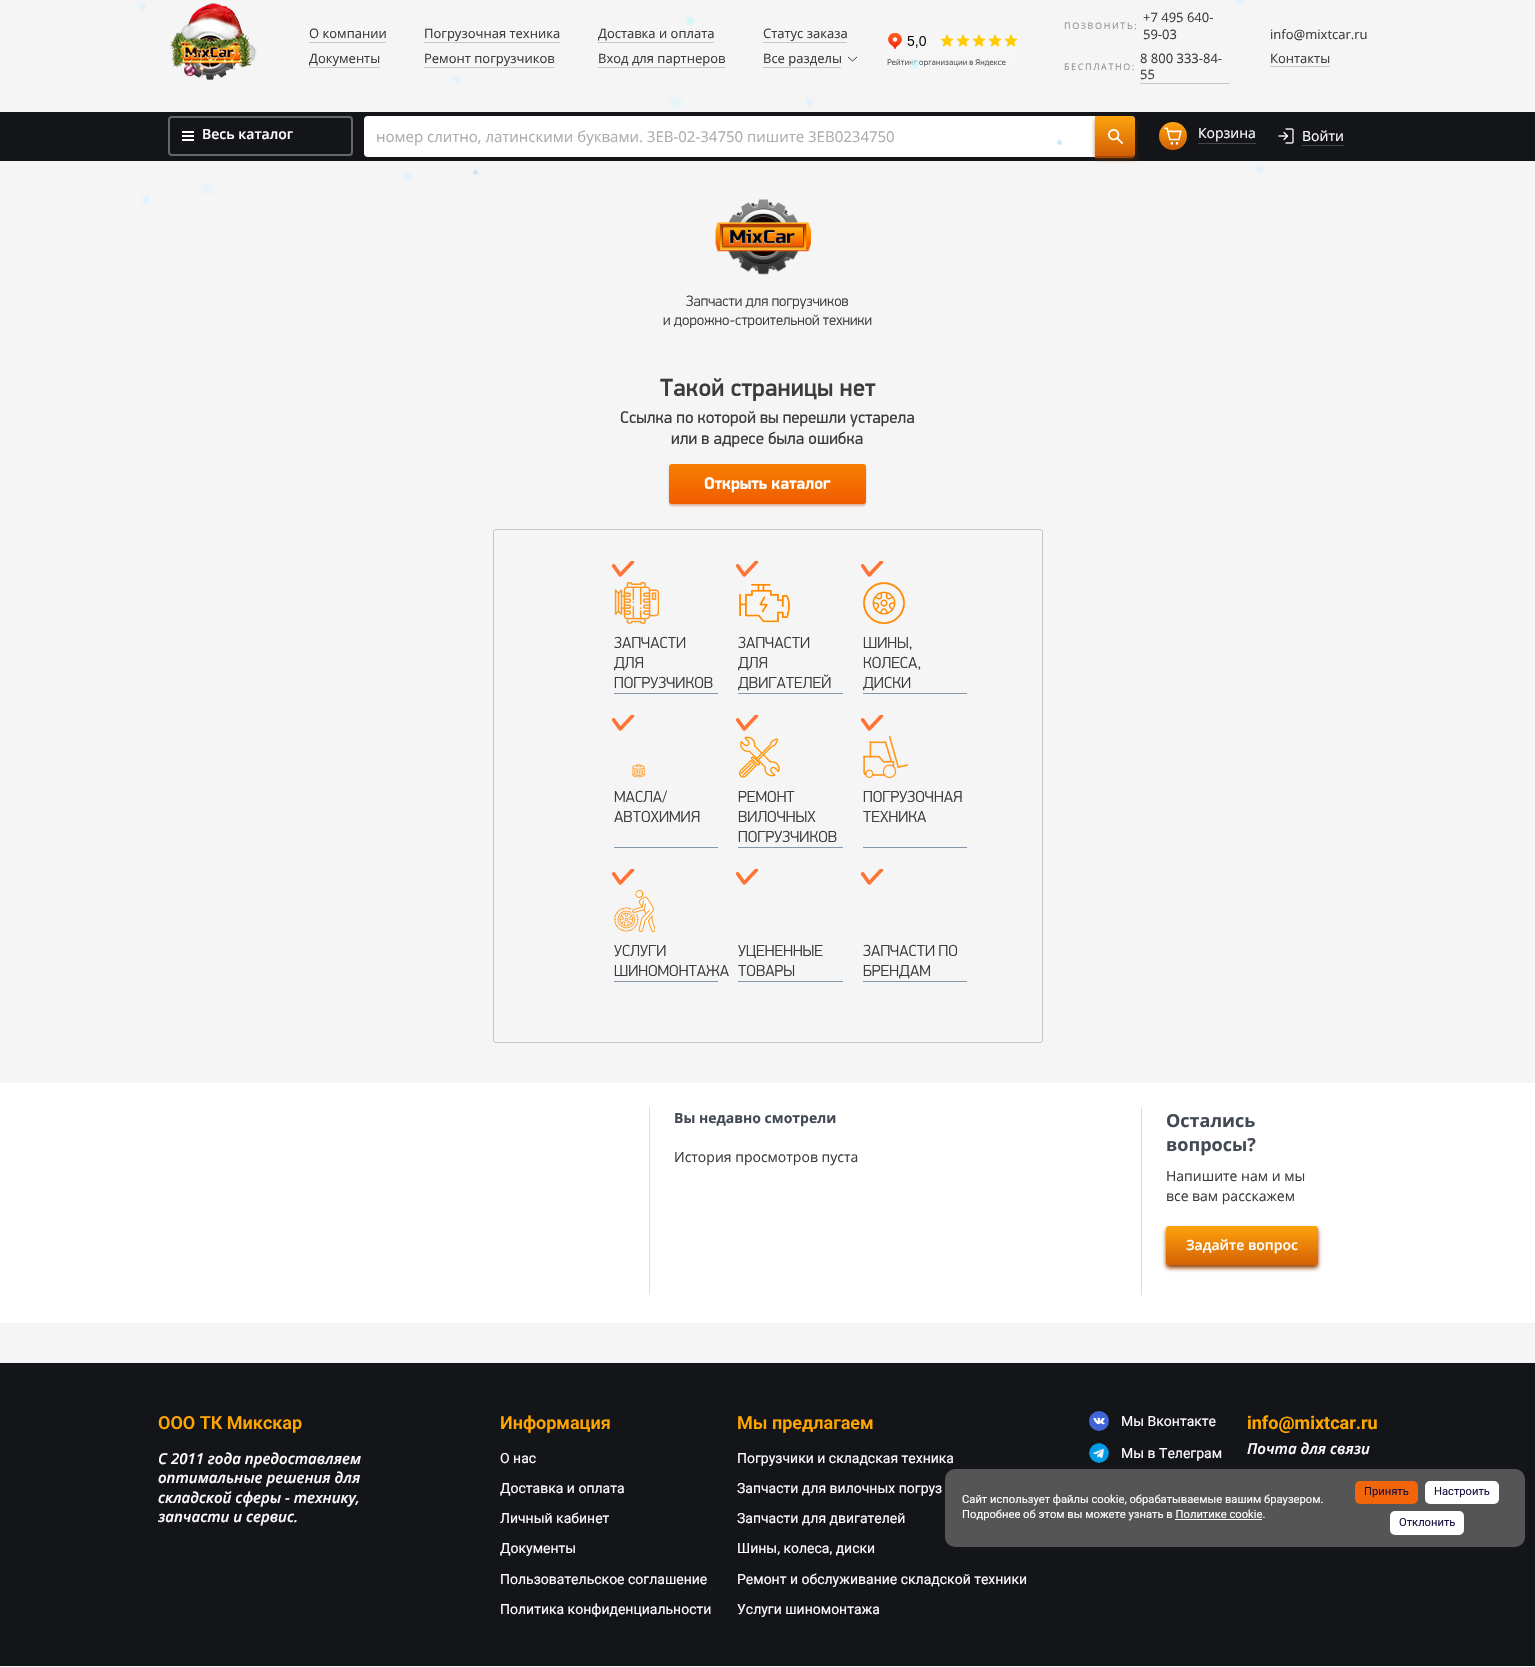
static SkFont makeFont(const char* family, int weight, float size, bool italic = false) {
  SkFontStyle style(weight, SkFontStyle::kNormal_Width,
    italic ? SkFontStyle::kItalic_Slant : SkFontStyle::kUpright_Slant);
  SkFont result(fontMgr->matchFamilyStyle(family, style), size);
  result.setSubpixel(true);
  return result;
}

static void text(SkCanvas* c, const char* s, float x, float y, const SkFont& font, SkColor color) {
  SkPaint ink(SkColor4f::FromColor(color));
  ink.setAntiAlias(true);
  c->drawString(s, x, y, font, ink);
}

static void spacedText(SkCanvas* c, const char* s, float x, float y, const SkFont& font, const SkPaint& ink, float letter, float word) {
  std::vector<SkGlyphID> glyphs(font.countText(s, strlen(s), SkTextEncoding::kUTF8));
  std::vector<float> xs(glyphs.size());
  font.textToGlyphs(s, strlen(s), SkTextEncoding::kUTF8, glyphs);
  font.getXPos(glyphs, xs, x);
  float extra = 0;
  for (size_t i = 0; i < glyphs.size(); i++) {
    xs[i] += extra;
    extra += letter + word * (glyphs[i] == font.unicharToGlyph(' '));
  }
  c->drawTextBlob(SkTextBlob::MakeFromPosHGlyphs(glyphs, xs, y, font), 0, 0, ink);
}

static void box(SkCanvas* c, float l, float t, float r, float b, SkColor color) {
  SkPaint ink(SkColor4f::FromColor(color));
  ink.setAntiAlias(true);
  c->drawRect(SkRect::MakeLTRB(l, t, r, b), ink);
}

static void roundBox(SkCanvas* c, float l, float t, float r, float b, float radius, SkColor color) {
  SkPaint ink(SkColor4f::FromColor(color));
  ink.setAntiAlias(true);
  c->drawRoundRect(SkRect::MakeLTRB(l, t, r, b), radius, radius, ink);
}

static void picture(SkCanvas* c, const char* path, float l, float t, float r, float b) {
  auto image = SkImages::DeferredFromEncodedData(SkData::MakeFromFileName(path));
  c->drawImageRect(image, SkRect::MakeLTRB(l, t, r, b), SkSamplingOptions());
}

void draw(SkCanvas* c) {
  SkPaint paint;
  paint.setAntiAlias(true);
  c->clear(0xfff5f5f5);
  picture(c, "img_01.png", 137, 1, 147, 12);
  picture(c, "img_02.png", 1235, 0, 1245, 6);
  picture(c, "img_03.png", 170, 3, 257, 80);
  box(c, 309, 42, 386, 43, 0xffc7c7c7);
  SkFont face1 = makeFont("Open Sans", 400, 13);
  text(c, "О компании", 309, 38, face1, 0xff3c3c3c);
  box(c, 309, 67, 380, 68, 0xffc7c7c7);
  text(c, "Документы", 309, 63, face1, 0xff3c3c3c);
  box(c, 424, 42, 560, 43, 0xffc7c7c7);
  text(c, "Погрузочная техника", 424, 38, face1, 0xff3c3c3c);
  box(c, 424, 67, 554, 68, 0xffc7c7c7);
  text(c, "Ремонт погрузчиков", 424, 63, face1, 0xff3c3c3c);
  box(c, 598, 42, 714, 43, 0xffc7c7c7);
  text(c, "Доставка и оплата", 598, 38, face1, 0xff3c3c3c);
  box(c, 598, 67, 725, 68, 0xffc7c7c7);
  text(c, "Вход для партнеров", 598, 63, face1, 0xff3c3c3c);
  box(c, 763, 42, 847, 43, 0xffc7c7c7);
  text(c, "Статус заказа", 763, 38, face1, 0xff3c3c3c);
  box(c, 763, 67, 841, 68, 0xffc7c7c7);
  text(c, "Все разделы", 763, 63, face1, 0xff3c3c3c);
  paint.setStyle(SkPaint::kStroke_Style);
  paint.setStrokeWidth(1);
  paint.setColor(0xff393939);
  c->drawPath(SkPathBuilder().moveTo(848, 57).lineTo(852.5f, 61).lineTo(857, 57).detach(), paint);
  picture(c, "img_04.png", 887, 33, 1018, 67);
  SkFont face2 = makeFont("Open Sans", 400, 9);
  paint.setStyle(SkPaint::kFill_Style);
  paint.setColor(0xff8f8f8f);
  spacedText(c, "ПОЗВОНИТЬ:", 1064, 29, face2, paint, 1.6f, 0);
  text(c, "+7 495 640-", 1143, 22, face1, 0xff3c3c3c);
  text(c, "59-03", 1143, 39, face1, 0xff3c3c3c);
  spacedText(c, "БЕСПЛАТНО:", 1064, 70, face2, paint, 1.6f, 0);
  box(c, 1140, 83, 1230, 84, 0xffc7c7c7);
  text(c, "8 800 333-84-", 1140, 63, face1, 0xff3c3c3c);
  text(c, "55", 1140, 79, face1, 0xff3c3c3c);
  text(c, "info@mixtcar.ru", 1270, 39, face1, 0xff3c3c3c);
  box(c, 1270, 66, 1330, 67, 0xffc7c7c7);
  text(c, "Контакты", 1270, 63, face1, 0xff3c3c3c);
  box(c, 0, 112, 1535, 161, 0xff131519);
  paint.setStyle(SkPaint::kStroke_Style);
  paint.setStrokeWidth(2);
  paint.setColor(0xff64676a);
  c->drawRoundRect(SkRect::MakeLTRB(169, 117, 352, 155), 3, 3, paint);
  picture(c, "img_05.png", 182, 131, 194, 141);
  SkFont face3 = makeFont("Open Sans", 600, 14);
  text(c, "Весь каталог", 202, 139, face3, 0xffffffff);
  roundBox(c, 364, 116, 1135, 157, 4, 0xffffffff);
  SkFont face4 = makeFont("Open Sans", 400, 15);
  text(c, "номер слитно, латинскими буквами. 3EB-02-34750 пишите 3EB0234750", 376, 142, face4, 0xffacacac);
  paint.setStyle(SkPaint::kFill_Style);
  paint.setColor(0xffaa4d00);
  c->drawPath(SkPathBuilder().moveTo(1095, 156).lineTo(1095, 158).lineTo(1131, 158).cubicTo(1133, 158, 1135, 156, 1135, 154).lineTo(1135, 152).cubicTo(1135, 154, 1133, 156, 1131, 156).close().detach(), paint);
  paint.setColor(0xa8944000);
  paint.setMaskFilter(SkMaskFilter::MakeBlur(kNormal_SkBlurStyle, 2));
  c->drawRoundRect(SkRect::MakeLTRB(1095, 119, 1135, 159), 4, 4, paint);
  paint.setMaskFilter(nullptr);
  {
    const SkColor colors[] = {0xffffa50e, 0xffd15d05};
    const float stops[] = {0, 1};
    const SkPoint ends[] = {{1115, 116}, {1115, 156}};
    paint.setShader(SkGradientShader::MakeLinear(ends, colors, stops, 2, SkTileMode::kClamp));
    paint.setAlpha(255);
  }
  c->drawPath(SkPathBuilder().moveTo(1095, 116).lineTo(1131, 116).cubicTo(1133, 116, 1135, 118, 1135, 120).lineTo(1135, 152).cubicTo(1135, 154, 1133, 156, 1131, 156).lineTo(1095, 156).close().detach(), paint);
  picture(c, "img_06.png", 1108, 129, 1123, 144);
  {
    const SkColor colors[] = {0xffffa50e, 0xffd15d05};
    const float stops[] = {0, 1};
    const SkPoint ends[] = {{1173, 122}, {1173, 150}};
    paint.setShader(SkGradientShader::MakeLinear(ends, colors, stops, 2, SkTileMode::kClamp));
    paint.setAlpha(255);
  }
  c->drawCircle(1173, 136, 14, paint);
  picture(c, "img_07.png", 1164, 127, 1182, 145);
  box(c, 1198, 143, 1256, 144, 0xff424447);
  SkFont face5 = makeFont("Open Sans", 400, 14);
  text(c, "Корзина", 1198, 138, face5, 0xffffffff);
  picture(c, "img_08.png", 1278, 128, 1294, 144);
  box(c, 1302, 145, 1344, 146, 0xff424447);
  text(c, "Войти", 1302, 141, face5, 0xffffffff);
  picture(c, "img_09.png", 715, 199, 811, 275);
  SkFont face6 = makeFont("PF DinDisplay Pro", 300, 15);
  text(c, "Запчасти для погрузчиков", 686, 306, face6, 0xff3c3c3c);
  text(c, "и дорожно-строительной техники", 663, 325, face6, 0xff3c3c3c);
  SkFont face7 = makeFont("PF DinDisplay Pro", 500, 25);
  text(c, "Такой страницы нет", 660, 396, face7, 0xff3c3c3c);
  SkFont face8 = makeFont("PF DinDisplay Pro", 400, 17);
  text(c, "Ссылка по которой вы перешли устарела", 620, 423, face8, 0xff3c3c3c);
  text(c, "или в адресе была ошибка", 671, 444, face8, 0xff3c3c3c);
  paint.setShader(nullptr);
  paint.setColor(0xa6cd957c);
  paint.setMaskFilter(SkMaskFilter::MakeBlur(kNormal_SkBlurStyle, 1));
  c->drawRoundRect(SkRect::MakeLTRB(669, 466, 866, 506), 3, 3, paint);
  paint.setMaskFilter(nullptr);
  {
    const SkColor colors[] = {0xfff87e02, 0xffef5c00};
    const float stops[] = {0, 1};
    const SkPoint ends[] = {{768, 464}, {768, 504}};
    paint.setShader(SkGradientShader::MakeLinear(ends, colors, stops, 2, SkTileMode::kClamp));
    paint.setAlpha(255);
  }
  c->drawRoundRect(SkRect::MakeLTRB(669, 464, 866, 504), 3, 3, paint);
  SkFont face9 = makeFont("PF DinDisplay Pro", 700, 17);
  text(c, "Открыть каталог", 704, 489, face9, 0xffffffff);
  paint.setStyle(SkPaint::kStroke_Style);
  paint.setStrokeWidth(1);
  paint.setShader(nullptr);
  paint.setColor(0xffc1c7cd);
  c->drawRoundRect(SkRect::MakeLTRB(493.5f, 529.5f, 1042.5f, 1042.5f), 2.5f, 2.5f, paint);
  box(c, 614, 693, 718, 694, 0xff8497a9);
  picture(c, "img_10.png", 611, 561, 635, 577);
  picture(c, "img_11.png", 614, 582, 659, 624);
  SkFont face10 = makeFont("PF DinDisplay Pro", 300, 16);
  text(c, "ЗАПЧАСТИ", 614, 648, face10, 0xff3c3c3c);
  text(c, "ДЛЯ", 614, 668, face10, 0xff3c3c3c);
  text(c, "ПОГРУЗЧИКОВ", 614, 688, face10, 0xff3c3c3c);
  box(c, 738, 693, 843, 694, 0xff8497a9);
  picture(c, "img_10.png", 735, 561, 759, 577);
  picture(c, "img_12.png", 738, 583, 791, 623);
  text(c, "ЗАПЧАСТИ", 738, 648, face10, 0xff3c3c3c);
  text(c, "ДЛЯ", 738, 668, face10, 0xff3c3c3c);
  text(c, "ДВИГАТЕЛЕЙ", 738, 688, face10, 0xff3c3c3c);
  box(c, 863, 693, 967, 694, 0xff8497a9);
  picture(c, "img_10.png", 860, 561, 884, 577);
  picture(c, "img_13.png", 863, 582, 905, 624);
  text(c, "ШИНЫ,", 863, 648, face10, 0xff3c3c3c);
  text(c, "КОЛЕСА,", 863, 668, face10, 0xff3c3c3c);
  text(c, "ДИСКИ", 863, 688, face10, 0xff3c3c3c);
  box(c, 614, 847, 718, 848, 0xff8497a9);
  picture(c, "img_10.png", 611, 715, 635, 731);
  picture(c, "img_14.png", 632, 764, 645, 778);
  text(c, "МАСЛА/", 614, 802, face10, 0xff3c3c3c);
  text(c, "АВТОХИМИЯ", 614, 822, face10, 0xff3c3c3c);
  box(c, 738, 847, 843, 848, 0xff8497a9);
  picture(c, "img_10.png", 735, 715, 759, 731);
  picture(c, "img_15.png", 738, 736, 780, 778);
  text(c, "РЕМОНТ", 738, 802, face10, 0xff3c3c3c);
  text(c, "ВИЛОЧНЫХ", 738, 822, face10, 0xff3c3c3c);
  text(c, "ПОГРУЗЧИКОВ", 738, 842, face10, 0xff3c3c3c);
  box(c, 863, 847, 967, 848, 0xff8497a9);
  picture(c, "img_10.png", 860, 715, 884, 731);
  picture(c, "img_16.png", 863, 736, 908, 778);
  text(c, "ПОГРУЗОЧНАЯ", 863, 802, face10, 0xff3c3c3c);
  text(c, "ТЕХНИКА", 863, 822, face10, 0xff3c3c3c);
  box(c, 614, 981, 718, 982, 0xff8497a9);
  picture(c, "img_10.png", 611, 869, 635, 885);
  picture(c, "img_17.png", 614, 890, 655, 932);
  text(c, "УСЛУГИ", 614, 956, face10, 0xff3c3c3c);
  text(c, "ШИНОМОНТАЖА", 614, 976, face10, 0xff3c3c3c);
  box(c, 738, 981, 843, 982, 0xff8497a9);
  picture(c, "img_10.png", 735, 869, 759, 885);
  text(c, "УЦЕНЕННЫЕ", 738, 956, face10, 0xff3c3c3c);
  text(c, "ТОВАРЫ", 738, 976, face10, 0xff3c3c3c);
  box(c, 863, 981, 967, 982, 0xff8497a9);
  picture(c, "img_10.png", 860, 869, 884, 885);
  text(c, "ЗАПЧАСТИ ПО", 863, 956, face10, 0xff3c3c3c);
  text(c, "БРЕНДАМ", 863, 976, face10, 0xff3c3c3c);
  box(c, 0, 1083, 1535, 1323, 0xffffffff);
  box(c, 649, 1107, 650, 1295, 0xffdcdfe2);
  SkFont face11 = makeFont("Open Sans", 700, 14);
  text(c, "Вы недавно смотрели", 674, 1123, face11, 0xff434a54);
  box(c, 1141, 1107, 1142, 1295, 0xffdcdfe2);
  text(c, "История просмотров пуста", 674, 1162, face5, 0xff3c3c3c);
  SkFont face12 = makeFont("Open Sans", 700, 18);
  text(c, "Остались", 1166, 1127, face12, 0xff434a54);
  text(c, "вопросы?", 1166, 1151, face12, 0xff434a54);
  text(c, "Напишите нам и мы", 1166, 1181, face5, 0xff3c3c3c);
  text(c, "все вам расскажем", 1166, 1201, face5, 0xff3c3c3c);
  paint.setStyle(SkPaint::kFill_Style);
  paint.setColor(0xff944000);
  paint.setMaskFilter(SkMaskFilter::MakeBlur(kNormal_SkBlurStyle, 2));
  c->drawRoundRect(SkRect::MakeLTRB(1166, 1229, 1318, 1268), 3, 3, paint);
  paint.setMaskFilter(nullptr);
  {
    const SkColor colors[] = {0xfffea30d, 0xffd46105};
    const float stops[] = {0, 1};
    const SkPoint ends[] = {{1242, 1226}, {1242, 1265}};
    paint.setShader(SkGradientShader::MakeLinear(ends, colors, stops, 2, SkTileMode::kClamp));
    paint.setAlpha(255);
  }
  c->drawRoundRect(SkRect::MakeLTRB(1166, 1226, 1318, 1265), 3, 3, paint);
  text(c, "Задайте вопрос", 1186, 1250, face3, 0xffffffff);
  box(c, 0, 1363, 1535, 1666, 0xff131519);
  SkFont face13 = makeFont("Roboto", 600, 18);
  text(c, "ООО ТК Микскар", 158, 1429, face13, 0xffffa500);
  SkFont face14 = makeFont("Open Sans", 600, 15, true);
  text(c, "С 2011 года предоставляем", 158, 1464, face14, 0xffffffff);
  text(c, "оптимальные решения для", 158, 1483, face14, 0xffffffff);
  text(c, "складской сферы - технику,", 158, 1503, face14, 0xffffffff);
  text(c, "запчасти и сервис.", 158, 1522, face14, 0xffffffff);
  text(c, "Информация", 500, 1429, face13, 0xffffa500);
  SkFont face15 = makeFont("Roboto", 400, 14);
  text(c, "О нас", 500, 1463, face15, 0xffffffff);
  text(c, "Доставка и оплата", 500, 1493, face15, 0xffffffff);
  text(c, "Личный кабинет", 500, 1523, face15, 0xffffffff);
  text(c, "Документы", 500, 1553, face15, 0xffffffff);
  text(c, "Пользовательское соглашение", 500, 1584, face15, 0xffffffff);
  text(c, "Политика конфиденциальности", 500, 1614, face15, 0xffffffff);
  text(c, "Мы предлагаем", 737, 1429, face13, 0xffffa500);
  text(c, "Погрузчики и складская техника", 737, 1463, face15, 0xffffffff);
  text(c, "Запчасти для вилочных погруз", 737, 1493, face15, 0xffffffff);
  text(c, "Запчасти для двигателей", 737, 1523, face15, 0xffffffff);
  text(c, "Шины, колеса, диски", 737, 1553, face15, 0xffffffff);
  text(c, "Ремонт и обслуживание складской техники", 737, 1584, face15, 0xffffffff);
  text(c, "Услуги шиномонтажа", 737, 1614, face15, 0xffffffff);
  picture(c, "img_18.png", 1089, 1411, 1109, 1431);
  text(c, "Мы Вконтакте", 1121, 1426, face15, 0xffffffff);
  picture(c, "img_19.png", 1089, 1443, 1109, 1463);
  text(c, "Мы в Телеграм", 1121, 1458, face15, 0xffffffff);
  SkFont face16 = makeFont("Roboto", 700, 18);
  text(c, "info@mixtcar.ru", 1247, 1429, face16, 0xffffa500);
  text(c, "Почта для связи", 1247, 1454, face14, 0xffffffff);
  roundBox(c, 945, 1469, 1525, 1547, 10, 0xff555555);
  SkFont face17 = makeFont("Roboto", 400, 11.2f);
  text(c, "Сайт использует файлы cookie, обрабатываемые вашим браузером.", 962, 1503, face17, 0xffffffff);
  text(c, "Подробнее об этом вы можете узнать в Политике cookie.", 962, 1518, face17, 0xffffffff);
  box(c, 1175, 1519, 1262, 1520, 0xffffffff);
  roundBox(c, 1355, 1481, 1418, 1504, 5, 0xfff36509);
  text(c, "Принять", 1364, 1495, face17, 0xff171241);
  roundBox(c, 1425, 1481, 1499, 1504, 5, 0xffffffff);
  text(c, "Настроить", 1434, 1495, face17, 0xff171241);
  roundBox(c, 1390, 1511, 1464, 1535, 5, 0xffffffff);
  text(c, "Отклонить", 1399, 1526, face17, 0xff171241);
  picture(c, "img_20.png", 685, 16, 696, 26);
  picture(c, "img_21.png", 909, 59, 920, 69);
  picture(c, "img_22.png", 452, 74, 462, 84);
  picture(c, "img_23.png", 668, 95, 683, 110);
  picture(c, "img_22.png", 804, 97, 814, 107);
  picture(c, "img_24.png", 1056, 139, 1063, 145);
  picture(c, "img_01.png", 402, 171, 412, 182);
  picture(c, "img_25.png", 472, 169, 479, 175);
  picture(c, "img_01.png", 1254, 163, 1264, 174);
  picture(c, "img_23.png", 200, 181, 215, 196);
  picture(c, "img_01.png", 141, 194, 151, 205);
}
